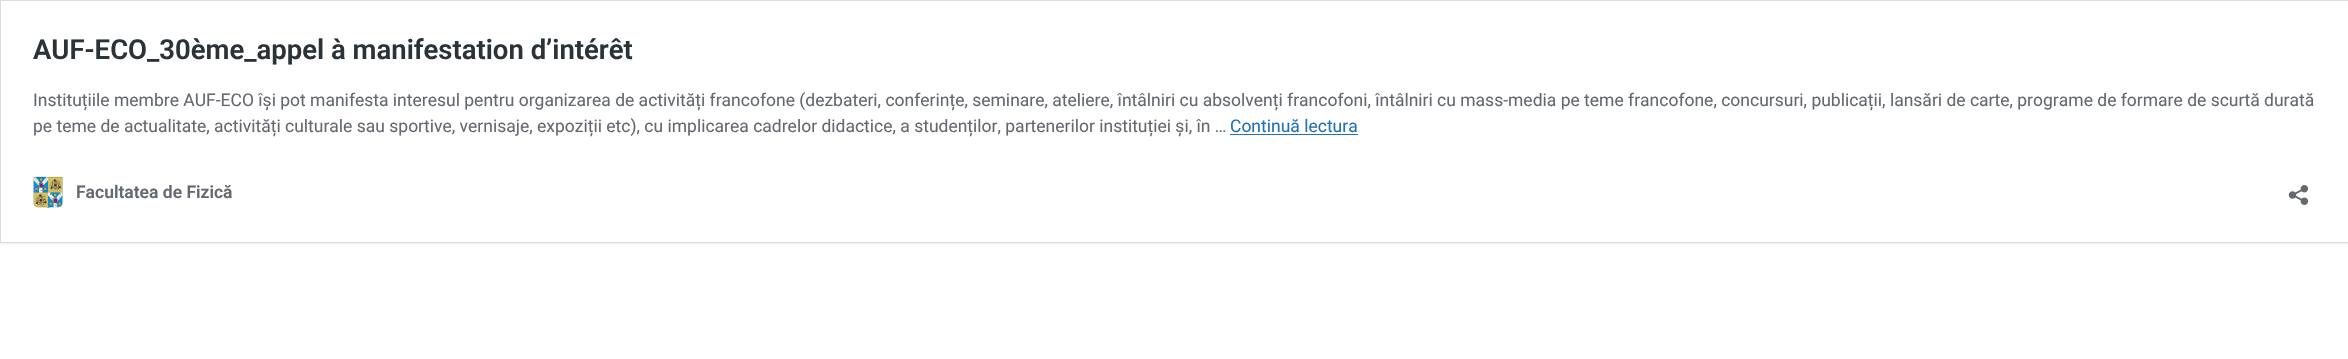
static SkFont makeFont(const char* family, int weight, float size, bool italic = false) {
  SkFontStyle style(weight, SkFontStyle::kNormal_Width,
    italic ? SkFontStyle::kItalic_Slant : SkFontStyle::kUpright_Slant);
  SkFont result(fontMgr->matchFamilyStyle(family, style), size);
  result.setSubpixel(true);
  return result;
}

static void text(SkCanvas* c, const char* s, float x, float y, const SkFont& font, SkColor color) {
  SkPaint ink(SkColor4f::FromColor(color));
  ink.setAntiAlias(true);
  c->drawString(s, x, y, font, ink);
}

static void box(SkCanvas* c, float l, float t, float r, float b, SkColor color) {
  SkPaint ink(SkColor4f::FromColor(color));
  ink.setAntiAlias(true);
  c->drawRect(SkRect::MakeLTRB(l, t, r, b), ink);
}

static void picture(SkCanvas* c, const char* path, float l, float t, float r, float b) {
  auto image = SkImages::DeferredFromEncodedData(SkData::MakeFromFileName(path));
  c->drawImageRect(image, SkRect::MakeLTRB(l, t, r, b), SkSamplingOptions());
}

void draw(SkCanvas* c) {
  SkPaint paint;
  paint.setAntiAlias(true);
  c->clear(0xffffffff);
  paint.setColor(0x0d000000);
  paint.setMaskFilter(SkMaskFilter::MakeBlur(kNormal_SkBlurStyle, 0.5f));
  c->drawRect(SkRect::MakeLTRB(0, 1, 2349, 244), paint);
  paint.setMaskFilter(nullptr);
  paint.setColor(0xffffffff);
  c->drawRect(SkRect::MakeLTRB(0.5f, 0.5f, 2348.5f, 242.5f), paint);
  paint.setStyle(SkPaint::kStroke_Style);
  paint.setStrokeWidth(1);
  paint.setColor(0xffdcdcde);
  c->drawRect(SkRect::MakeLTRB(0.5f, 0.5f, 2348.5f, 242.5f), paint);
  SkFont face1 = makeFont("Roboto", 600, 27.5f);
  text(c, "AUF-ECO_30ème_appel à manifestation d’intérêt", 33, 59, face1, 0xff2c3338);
  SkFont face2 = makeFont("Roboto", 400, 17.5f);
  text(c, "Instituțiile membre AUF-ECO își pot manifesta interesul pentru organizarea de activități francofone (dezbateri, conferințe, seminare, ateliere, întâlniri cu absolvenți francofoni, întâlniri cu mass-media pe teme francofone, concursuri, publicații, lansări de carte, programe de formare de scurtă durată", 33, 106, face2, 0xff646970);
  text(c, "pe teme de actualitate, activități culturale sau sportive, vernisaje, expoziții etc), cu implicarea cadrelor didactice, a studenților, partenerilor instituției și, în …", 33, 132, face2, 0xff646970);
  text(c, "Continuă lectura", 1230, 132, face2, 0xff2271b1);
  box(c, 1230, 134, 1358, 135, 0xff2271b1);
  picture(c, "img_01.png", 32, 176, 63, 209);
  SkFont face3 = makeFont("Roboto", 600, 17.5f);
  text(c, "Facultatea de Fizică", 76, 198, face3, 0xff646970);
  picture(c, "img_02.png", 2288, 185, 2309, 205);
}
